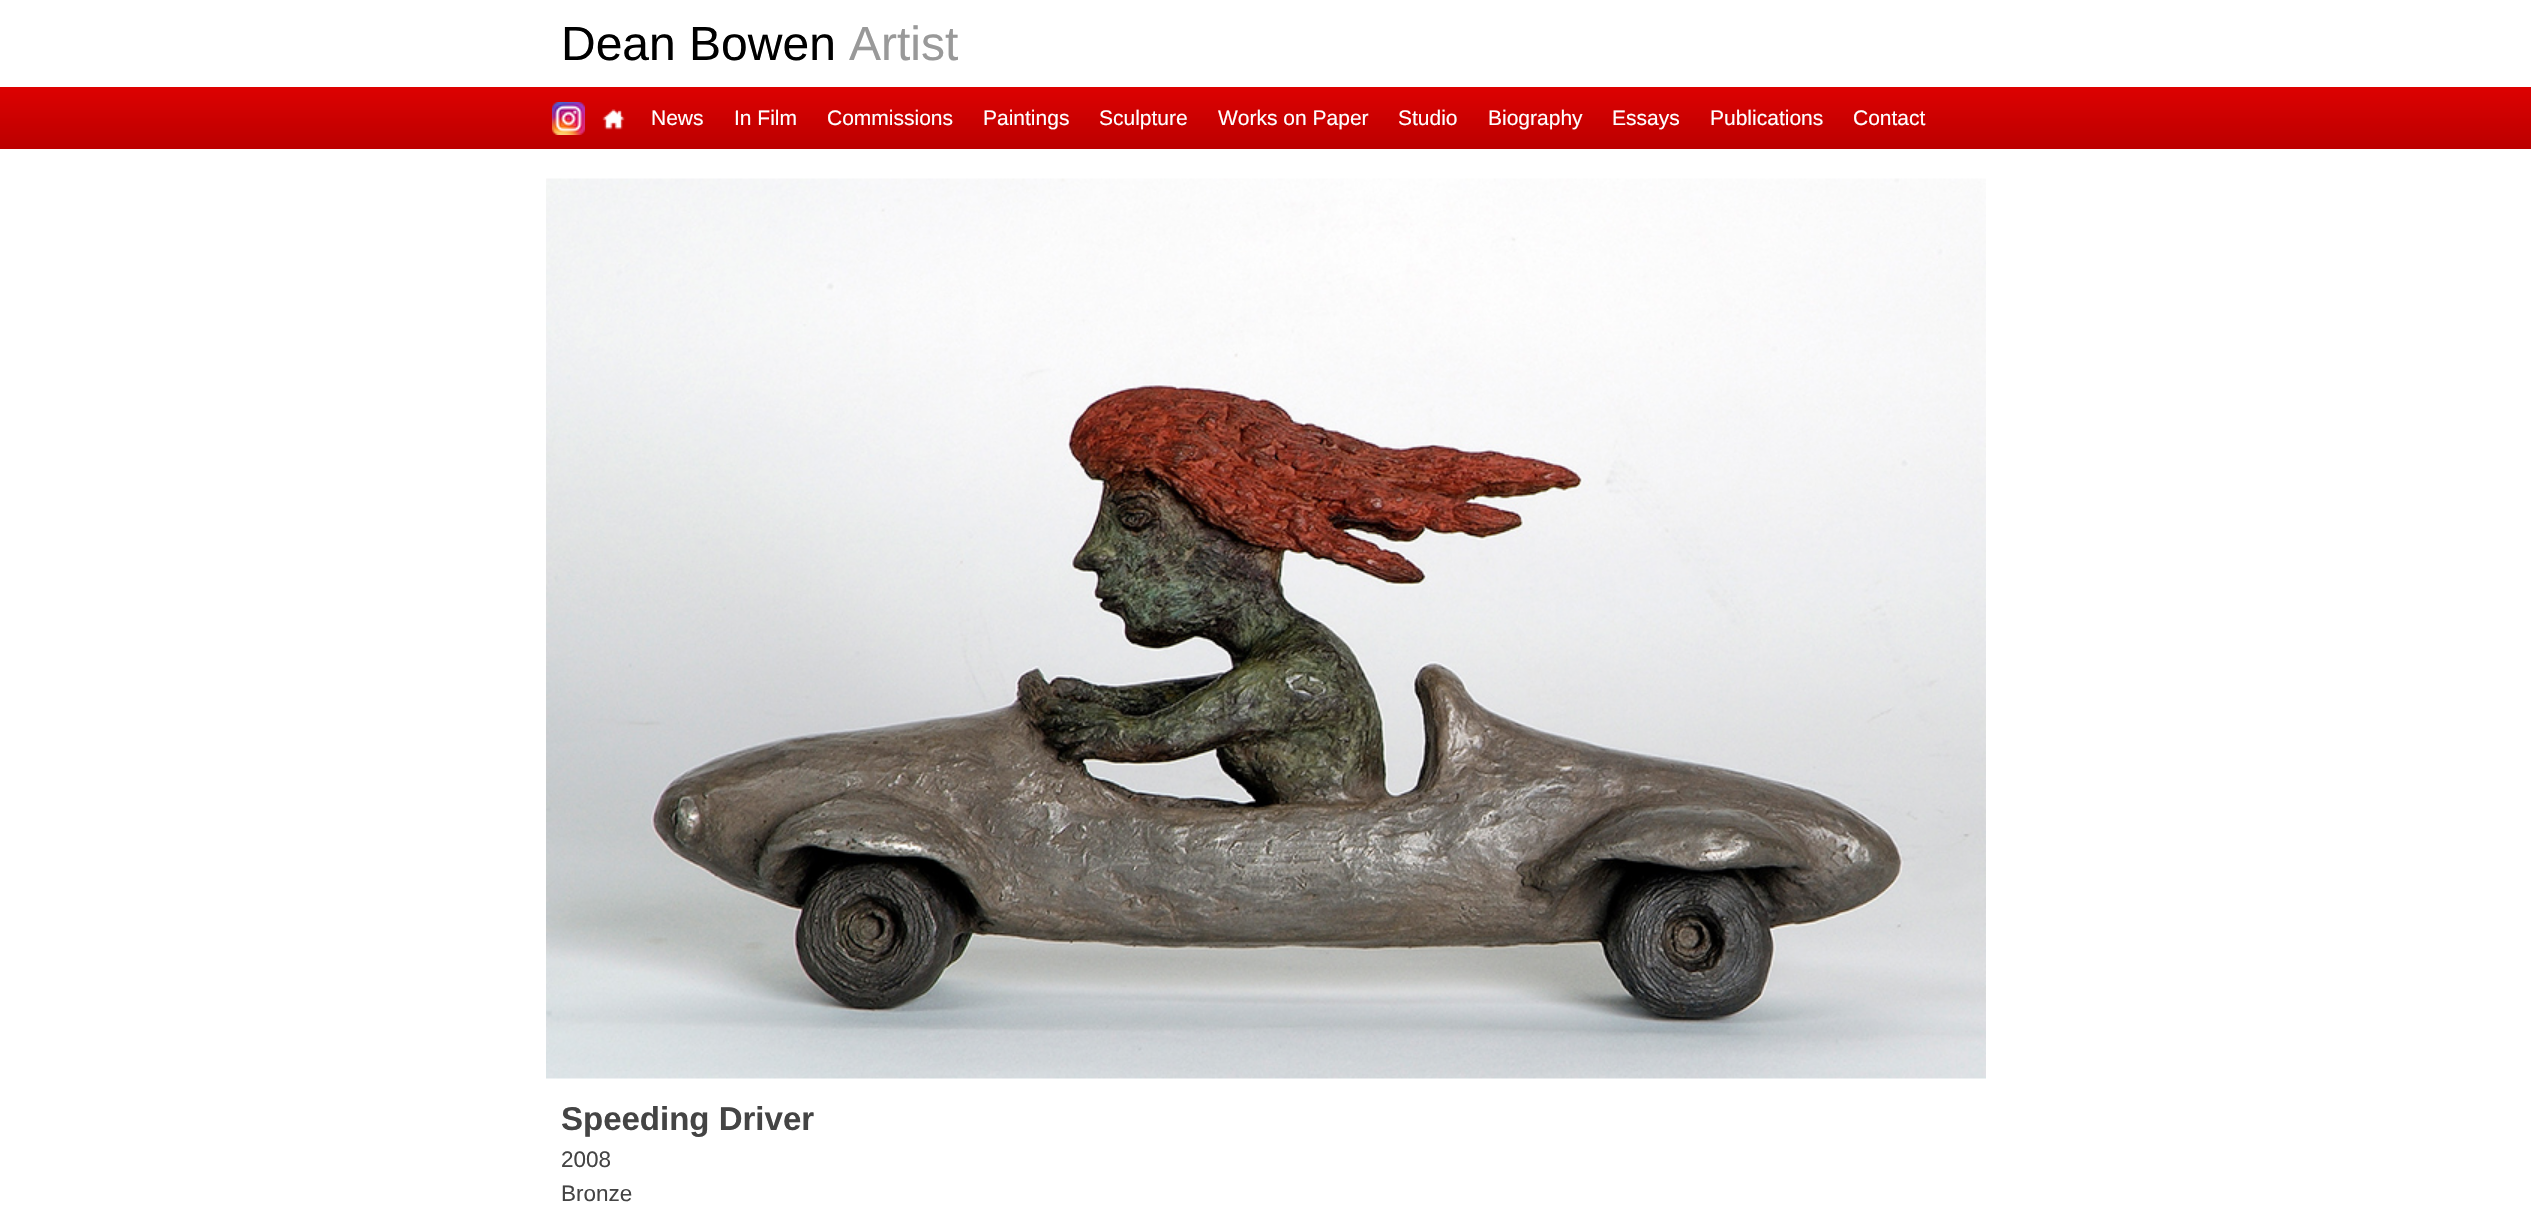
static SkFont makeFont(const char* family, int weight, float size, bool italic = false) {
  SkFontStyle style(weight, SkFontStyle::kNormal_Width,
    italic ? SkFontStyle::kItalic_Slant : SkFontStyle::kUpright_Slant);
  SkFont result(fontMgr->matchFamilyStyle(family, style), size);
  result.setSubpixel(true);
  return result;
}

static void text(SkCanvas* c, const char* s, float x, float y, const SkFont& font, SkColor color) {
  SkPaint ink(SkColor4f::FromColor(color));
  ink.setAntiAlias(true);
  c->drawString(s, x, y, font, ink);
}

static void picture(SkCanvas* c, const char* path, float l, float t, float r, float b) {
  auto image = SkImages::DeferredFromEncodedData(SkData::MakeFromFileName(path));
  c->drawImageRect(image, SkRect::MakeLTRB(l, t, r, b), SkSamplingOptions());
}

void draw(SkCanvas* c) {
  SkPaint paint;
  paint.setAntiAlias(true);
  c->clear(0xffffffff);
  SkFont face1 = makeFont("Liberation Sans", 400, 48);
  text(c, "Dean Bowen", 561, 60, face1, 0xff000000);
  text(c, "Artist", 849, 60, face1, 0xff999999);
  {
    const SkColor colors[] = {0xffdd0101, 0xffbb0000};
    const float stops[] = {0, 1};
    const SkPoint ends[] = {{1266, 87}, {1266, 149}};
    paint.setShader(SkGradientShader::MakeLinear(ends, colors, stops, 2, SkTileMode::kClamp));
    paint.setAlpha(255);
  }
  c->drawRect(SkRect::MakeLTRB(0, 87, 2531, 149), paint);
  picture(c, "img_01.png", 552, 102, 585, 135);
  picture(c, "img_02.png", 602, 109, 625, 130);
  SkFont face2 = makeFont("Liberation Sans", 400, 21);
  text(c, "News", 651, 125, face2, 0xffffffff);
  text(c, "In Film", 734, 125, face2, 0xffffffff);
  text(c, "Commissions", 827, 125, face2, 0xffffffff);
  text(c, "Paintings", 983, 125, face2, 0xffffffff);
  text(c, "Sculpture", 1099, 125, face2, 0xffffffff);
  text(c, "Works on Paper", 1218, 125, face2, 0xffffffff);
  text(c, "Studio", 1398, 125, face2, 0xffffffff);
  text(c, "Biography", 1488, 125, face2, 0xffffffff);
  text(c, "Essays", 1612, 125, face2, 0xffffffff);
  text(c, "Publications", 1710, 125, face2, 0xffffffff);
  text(c, "Contact", 1853, 125, face2, 0xffffffff);
  picture(c, "img_03.png", 546, 178, 1986, 1079);
  SkFont face3 = makeFont("Liberation Sans", 700, 33);
  text(c, "Speeding Driver", 561, 1130, face3, 0xff444444);
  SkFont face4 = makeFont("Liberation Sans", 400, 22.5f);
  text(c, "2008", 561, 1167, face4, 0xff444444);
  text(c, "Bronze", 561, 1201, face4, 0xff444444);
}
